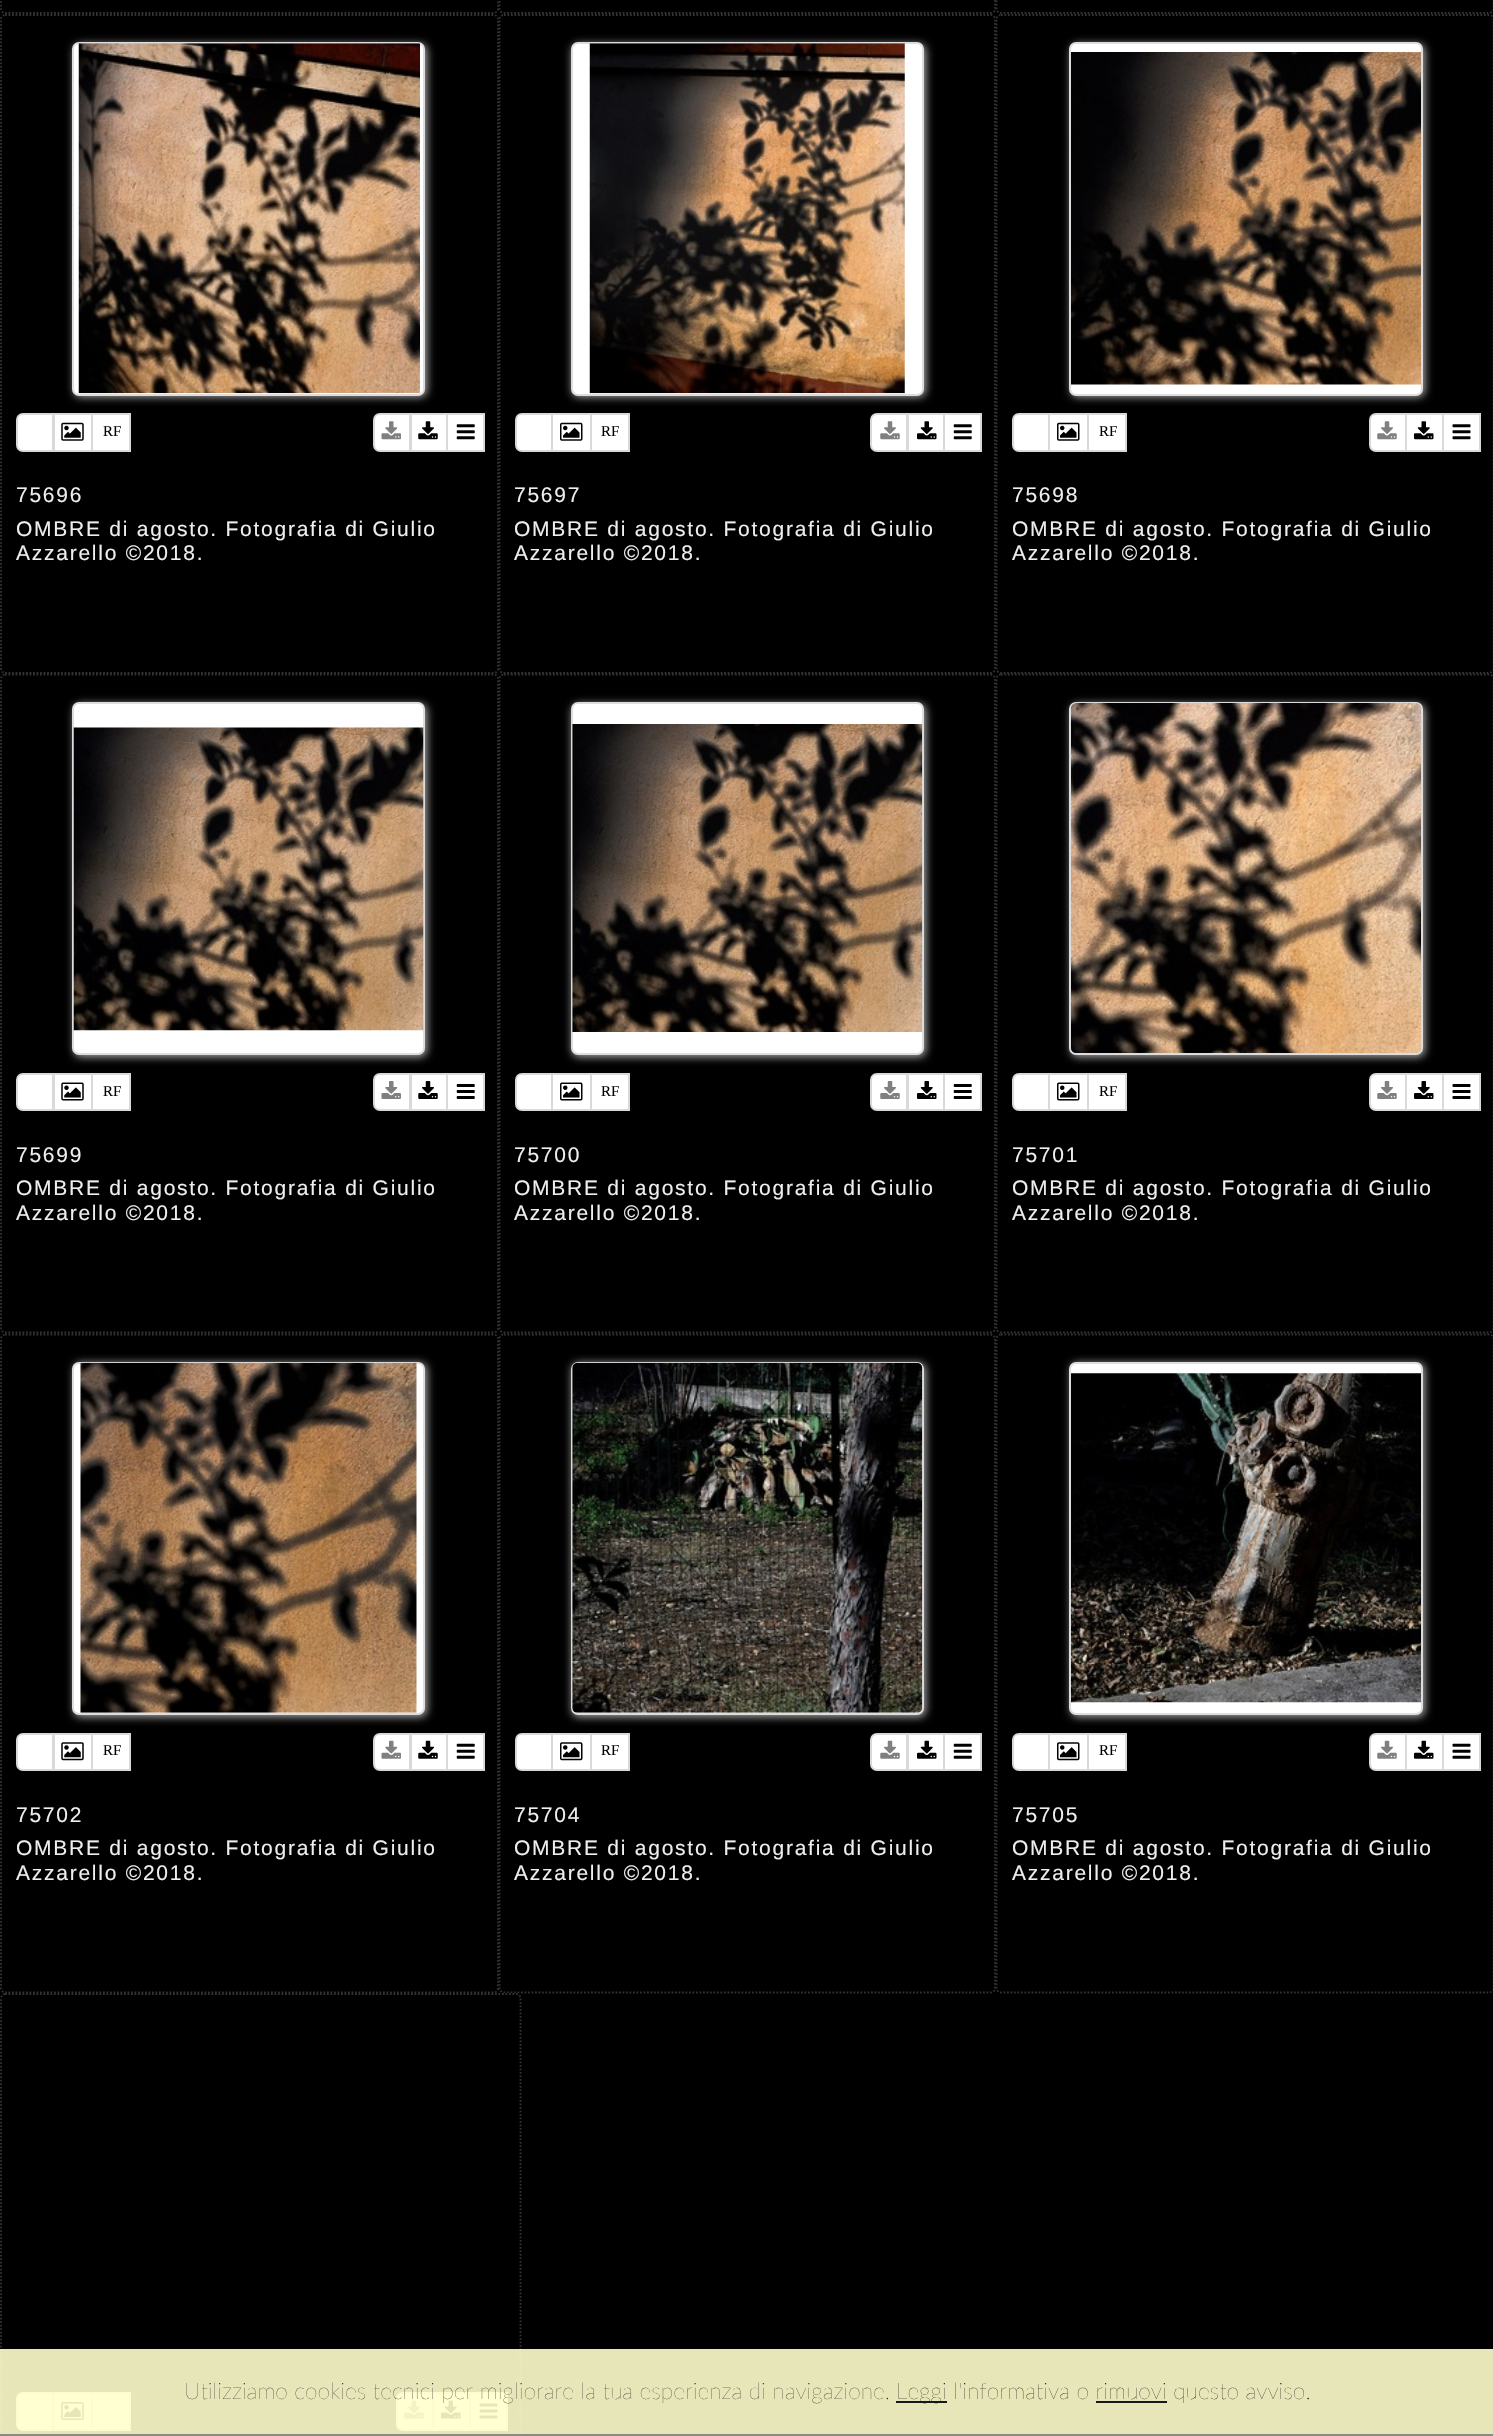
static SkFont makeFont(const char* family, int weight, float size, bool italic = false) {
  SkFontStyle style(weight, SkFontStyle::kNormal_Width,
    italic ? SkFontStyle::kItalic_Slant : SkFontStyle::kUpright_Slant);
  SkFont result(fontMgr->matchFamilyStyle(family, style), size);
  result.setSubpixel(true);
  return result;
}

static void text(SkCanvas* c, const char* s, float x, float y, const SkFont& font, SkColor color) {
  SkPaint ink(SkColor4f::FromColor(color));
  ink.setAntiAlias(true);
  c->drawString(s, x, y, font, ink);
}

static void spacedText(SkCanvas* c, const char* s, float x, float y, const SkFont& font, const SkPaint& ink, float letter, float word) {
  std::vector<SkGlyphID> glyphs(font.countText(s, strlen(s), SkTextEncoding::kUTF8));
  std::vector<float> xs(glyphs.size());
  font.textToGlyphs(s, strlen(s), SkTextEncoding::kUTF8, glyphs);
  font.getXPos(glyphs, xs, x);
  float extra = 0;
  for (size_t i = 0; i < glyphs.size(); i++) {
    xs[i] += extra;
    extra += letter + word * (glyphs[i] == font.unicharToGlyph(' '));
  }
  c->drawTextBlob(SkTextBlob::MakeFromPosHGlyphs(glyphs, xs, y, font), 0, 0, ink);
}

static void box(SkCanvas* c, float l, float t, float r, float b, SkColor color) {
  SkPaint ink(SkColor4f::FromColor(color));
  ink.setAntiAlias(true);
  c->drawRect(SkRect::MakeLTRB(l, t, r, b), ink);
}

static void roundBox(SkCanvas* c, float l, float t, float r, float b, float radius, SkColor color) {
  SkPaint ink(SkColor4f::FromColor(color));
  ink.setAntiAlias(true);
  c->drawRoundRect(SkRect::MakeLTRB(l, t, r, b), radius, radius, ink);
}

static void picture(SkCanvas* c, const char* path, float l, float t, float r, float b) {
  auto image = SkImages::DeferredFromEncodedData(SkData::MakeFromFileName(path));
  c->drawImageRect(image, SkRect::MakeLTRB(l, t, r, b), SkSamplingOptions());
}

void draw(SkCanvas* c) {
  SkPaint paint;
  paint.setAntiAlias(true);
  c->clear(0xff000000);
  paint.setStyle(SkPaint::kStroke_Style);
  paint.setStrokeWidth(1.8f);
  paint.setColor(0xff333333);
  paint.setPathEffect(SkDashPathEffect::Make({{1.75f, 1.75f}}, 0));
  c->drawPath(SkPathBuilder().moveTo(5, -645).lineTo(493.5f, -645).cubicTo(496, -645, 498, -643, 498, -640.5f).lineTo(498, 9).cubicTo(498, 11, 496, 13, 493.5f, 13).lineTo(5, 13).cubicTo(3, 13, 1, 11, 1, 9).lineTo(1, -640.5f).cubicTo(1, -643, 3, -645, 5, -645).close().detach(), paint);
  paint.setPathEffect(nullptr);
  paint.setPathEffect(SkDashPathEffect::Make({{1.75f, 1.75f}}, 0));
  c->drawPath(SkPathBuilder().moveTo(504, -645).lineTo(990.5f, -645).cubicTo(993, -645, 995, -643, 995, -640.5f).lineTo(995, 9).cubicTo(995, 11, 993, 13, 990.5f, 13).lineTo(504, 13).cubicTo(501.5f, 13, 499.5f, 11, 499.5f, 9).lineTo(499.5f, -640.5f).cubicTo(499.5f, -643, 501.5f, -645, 504, -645).close().detach(), paint);
  paint.setPathEffect(nullptr);
  paint.setPathEffect(SkDashPathEffect::Make({{1.75f, 1.75f}}, 0));
  c->drawPath(SkPathBuilder().moveTo(1001, -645).lineTo(1489, -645).cubicTo(1491.5f, -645, 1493.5f, -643, 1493.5f, -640.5f).lineTo(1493.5f, 9).cubicTo(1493.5f, 11, 1491.5f, 13, 1489, 13).lineTo(1001, 13).cubicTo(998.5f, 13, 996.5f, 11, 996.5f, 9).lineTo(996.5f, -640.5f).cubicTo(996.5f, -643, 998.5f, -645, 1001, -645).close().detach(), paint);
  paint.setPathEffect(nullptr);
  paint.setPathEffect(SkDashPathEffect::Make({{1.75f, 1.75f}}, 0));
  c->drawPath(SkPathBuilder().moveTo(5, 15).lineTo(493.5f, 15).cubicTo(496, 15, 498, 17, 498, 19).lineTo(498, 668.5f).cubicTo(498, 671, 496, 673, 493.5f, 673).lineTo(5, 673).cubicTo(3, 673, 1, 671, 1, 668.5f).lineTo(1, 19).cubicTo(1, 17, 3, 15, 5, 15).close().detach(), paint);
  paint.setPathEffect(nullptr);
  paint.setStyle(SkPaint::kFill_Style);
  paint.setColor(0xffaaaaaa);
  paint.setMaskFilter(SkMaskFilter::MakeBlur(kNormal_SkBlurStyle, 4.5f));
  c->drawRoundRect(SkRect::MakeLTRB(74, 44, 427, 397), 7, 7, paint);
  paint.setMaskFilter(nullptr);
  paint.setColor(0xffffffff);
  c->drawRoundRect(SkRect::MakeLTRB(73, 43, 424, 395), 6, 6, paint);
  paint.setStyle(SkPaint::kStroke_Style);
  paint.setStrokeWidth(2);
  paint.setColor(0xffdddddd);
  c->drawRoundRect(SkRect::MakeLTRB(73, 43, 424, 395), 6, 6, paint);
  picture(c, "img_01.png", 78, 43, 420, 394);
  paint.setStyle(SkPaint::kFill_Style);
  paint.setColor(0xffffffff);
  c->drawPath(SkPathBuilder().moveTo(23, 414).lineTo(53, 414).lineTo(53, 451).lineTo(23, 451).cubicTo(19.5f, 451, 17, 448.5f, 17, 445).lineTo(17, 420).cubicTo(17, 416.5f, 19.5f, 414, 23, 414).close().detach(), paint);
  paint.setStyle(SkPaint::kStroke_Style);
  paint.setColor(0xffd9d9db);
  c->drawPath(SkPathBuilder().moveTo(23, 414).lineTo(53, 414).lineTo(53, 451).lineTo(23, 451).cubicTo(19.5f, 451, 17, 448.5f, 17, 445).lineTo(17, 420).cubicTo(17, 416.5f, 19.5f, 414, 23, 414).close().detach(), paint);
  paint.setStyle(SkPaint::kFill_Style);
  paint.setColor(0xffffffff);
  c->drawRect(SkRect::MakeLTRB(54, 414, 92, 451), paint);
  paint.setStyle(SkPaint::kStroke_Style);
  paint.setColor(0xffd9d9db);
  c->drawRect(SkRect::MakeLTRB(54, 414, 92, 451), paint);
  picture(c, "img_02.png", 61, 422, 84, 441);
  paint.setStyle(SkPaint::kFill_Style);
  paint.setColor(0xffffffff);
  c->drawRect(SkRect::MakeLTRB(92, 414, 130, 451), paint);
  paint.setStyle(SkPaint::kStroke_Style);
  paint.setColor(0xffd9d9db);
  c->drawRect(SkRect::MakeLTRB(92, 414, 130, 451), paint);
  SkFont face1 = makeFont("Liberation Serif", 400, 15);
  text(c, "RF", 103, 436, face1, 0xff000000);
  paint.setStyle(SkPaint::kFill_Style);
  paint.setColor(0xffffffff);
  c->drawRect(SkRect::MakeLTRB(447, 414, 484, 451), paint);
  paint.setStyle(SkPaint::kStroke_Style);
  paint.setColor(0xffd9d9db);
  c->drawRect(SkRect::MakeLTRB(447, 414, 484, 451), paint);
  paint.setStyle(SkPaint::kFill_Style);
  paint.setColor(0xffffffff);
  c->drawRect(SkRect::MakeLTRB(411, 414, 447, 451), paint);
  paint.setStyle(SkPaint::kStroke_Style);
  paint.setColor(0xffd9d9db);
  c->drawRect(SkRect::MakeLTRB(411, 414, 447, 451), paint);
  paint.setStyle(SkPaint::kFill_Style);
  paint.setColor(0xffffffff);
  c->drawPath(SkPathBuilder().moveTo(380, 414).lineTo(410, 414).lineTo(410, 451).lineTo(380, 451).cubicTo(376.5f, 451, 374, 448.5f, 374, 445).lineTo(374, 420).cubicTo(374, 416.5f, 376.5f, 414, 380, 414).close().detach(), paint);
  paint.setStyle(SkPaint::kStroke_Style);
  paint.setColor(0xffd9d9db);
  c->drawPath(SkPathBuilder().moveTo(380, 414).lineTo(410, 414).lineTo(410, 451).lineTo(380, 451).cubicTo(376.5f, 451, 374, 448.5f, 374, 445).lineTo(374, 420).cubicTo(374, 416.5f, 376.5f, 414, 380, 414).close().detach(), paint);
  picture(c, "img_03.png", 381, 421, 401, 440);
  picture(c, "img_04.png", 418, 421, 438, 440);
  picture(c, "img_05.png", 456, 424, 475, 440);
  SkFont face2 = makeFont("Liberation Sans", 400, 21);
  paint.setStyle(SkPaint::kFill_Style);
  paint.setColor(0xffeeeeee);
  spacedText(c, "75696", 16, 502, face2, paint, 1.75f, 0);
  spacedText(c, "OMBRE di agosto. Fotografia di Giulio", 16, 536, face2, paint, 1.75f, 0);
  spacedText(c, "Azzarello ©2018.", 16, 560, face2, paint, 1.75f, 0);
  paint.setStyle(SkPaint::kStroke_Style);
  paint.setStrokeWidth(1.8f);
  paint.setColor(0xff333333);
  paint.setPathEffect(SkDashPathEffect::Make({{1.75f, 1.75f}}, 0));
  c->drawPath(SkPathBuilder().moveTo(504, 15).lineTo(990.5f, 15).cubicTo(993, 15, 995, 17, 995, 19).lineTo(995, 668.5f).cubicTo(995, 671, 993, 673, 990.5f, 673).lineTo(504, 673).cubicTo(501.5f, 673, 499.5f, 671, 499.5f, 668.5f).lineTo(499.5f, 19).cubicTo(499.5f, 17, 501.5f, 15, 504, 15).close().detach(), paint);
  paint.setPathEffect(nullptr);
  paint.setStyle(SkPaint::kFill_Style);
  paint.setColor(0xffaaaaaa);
  paint.setMaskFilter(SkMaskFilter::MakeBlur(kNormal_SkBlurStyle, 4.5f));
  c->drawRoundRect(SkRect::MakeLTRB(572, 44, 926, 397), 7, 7, paint);
  paint.setMaskFilter(nullptr);
  paint.setColor(0xffffffff);
  c->drawRoundRect(SkRect::MakeLTRB(572, 43, 923, 395), 6, 6, paint);
  paint.setStyle(SkPaint::kStroke_Style);
  paint.setStrokeWidth(2);
  paint.setColor(0xffdddddd);
  c->drawRoundRect(SkRect::MakeLTRB(572, 43, 923, 395), 6, 6, paint);
  picture(c, "img_06.png", 589, 43, 905, 394);
  paint.setStyle(SkPaint::kFill_Style);
  paint.setColor(0xffffffff);
  c->drawPath(SkPathBuilder().moveTo(522, 414).lineTo(552, 414).lineTo(552, 451).lineTo(522, 451).cubicTo(518.5f, 451, 516, 448.5f, 516, 445).lineTo(516, 420).cubicTo(516, 416.5f, 518.5f, 414, 522, 414).close().detach(), paint);
  paint.setStyle(SkPaint::kStroke_Style);
  paint.setColor(0xffd9d9db);
  c->drawPath(SkPathBuilder().moveTo(522, 414).lineTo(552, 414).lineTo(552, 451).lineTo(522, 451).cubicTo(518.5f, 451, 516, 448.5f, 516, 445).lineTo(516, 420).cubicTo(516, 416.5f, 518.5f, 414, 522, 414).close().detach(), paint);
  paint.setStyle(SkPaint::kFill_Style);
  paint.setColor(0xffffffff);
  c->drawRect(SkRect::MakeLTRB(552, 414, 591, 451), paint);
  paint.setStyle(SkPaint::kStroke_Style);
  paint.setColor(0xffd9d9db);
  c->drawRect(SkRect::MakeLTRB(552, 414, 591, 451), paint);
  picture(c, "img_07.png", 560, 422, 583, 441);
  paint.setStyle(SkPaint::kFill_Style);
  paint.setColor(0xffffffff);
  c->drawRect(SkRect::MakeLTRB(591, 414, 629, 451), paint);
  paint.setStyle(SkPaint::kStroke_Style);
  paint.setColor(0xffd9d9db);
  c->drawRect(SkRect::MakeLTRB(591, 414, 629, 451), paint);
  text(c, "RF", 601, 436, face1, 0xff000000);
  paint.setStyle(SkPaint::kFill_Style);
  paint.setColor(0xffffffff);
  c->drawRect(SkRect::MakeLTRB(944, 414, 981, 451), paint);
  paint.setStyle(SkPaint::kStroke_Style);
  paint.setColor(0xffd9d9db);
  c->drawRect(SkRect::MakeLTRB(944, 414, 981, 451), paint);
  paint.setStyle(SkPaint::kFill_Style);
  paint.setColor(0xffffffff);
  c->drawRect(SkRect::MakeLTRB(908, 414, 944, 451), paint);
  paint.setStyle(SkPaint::kStroke_Style);
  paint.setColor(0xffd9d9db);
  c->drawRect(SkRect::MakeLTRB(908, 414, 944, 451), paint);
  paint.setStyle(SkPaint::kFill_Style);
  paint.setColor(0xffffffff);
  c->drawPath(SkPathBuilder().moveTo(877, 414).lineTo(907, 414).lineTo(907, 451).lineTo(877, 451).cubicTo(873.5f, 451, 871, 448.5f, 871, 445).lineTo(871, 420).cubicTo(871, 416.5f, 873.5f, 414, 877, 414).close().detach(), paint);
  paint.setStyle(SkPaint::kStroke_Style);
  paint.setColor(0xffd9d9db);
  c->drawPath(SkPathBuilder().moveTo(877, 414).lineTo(907, 414).lineTo(907, 451).lineTo(877, 451).cubicTo(873.5f, 451, 871, 448.5f, 871, 445).lineTo(871, 420).cubicTo(871, 416.5f, 873.5f, 414, 877, 414).close().detach(), paint);
  picture(c, "img_08.png", 880, 421, 900, 440);
  picture(c, "img_09.png", 917, 421, 937, 440);
  picture(c, "img_05.png", 953, 424, 972, 440);
  paint.setStyle(SkPaint::kFill_Style);
  paint.setColor(0xffeeeeee);
  spacedText(c, "75697", 514, 502, face2, paint, 1.75f, 0);
  spacedText(c, "OMBRE di agosto. Fotografia di Giulio", 514, 536, face2, paint, 1.75f, 0);
  spacedText(c, "Azzarello ©2018.", 514, 560, face2, paint, 1.75f, 0);
  paint.setStyle(SkPaint::kStroke_Style);
  paint.setStrokeWidth(1.8f);
  paint.setColor(0xff333333);
  paint.setPathEffect(SkDashPathEffect::Make({{1.75f, 1.75f}}, 0));
  c->drawPath(SkPathBuilder().moveTo(1001, 15).lineTo(1489, 15).cubicTo(1491.5f, 15, 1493.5f, 17, 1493.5f, 19).lineTo(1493.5f, 668.5f).cubicTo(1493.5f, 671, 1491.5f, 673, 1489, 673).lineTo(1001, 673).cubicTo(998.5f, 673, 996.5f, 671, 996.5f, 668.5f).lineTo(996.5f, 19).cubicTo(996.5f, 17, 998.5f, 15, 1001, 15).close().detach(), paint);
  paint.setPathEffect(nullptr);
  paint.setStyle(SkPaint::kFill_Style);
  paint.setColor(0xffaaaaaa);
  paint.setMaskFilter(SkMaskFilter::MakeBlur(kNormal_SkBlurStyle, 4.5f));
  c->drawRoundRect(SkRect::MakeLTRB(1071, 44, 1425, 397), 7, 7, paint);
  paint.setMaskFilter(nullptr);
  paint.setColor(0xffffffff);
  c->drawRoundRect(SkRect::MakeLTRB(1070, 43, 1422, 395), 6, 6, paint);
  paint.setStyle(SkPaint::kStroke_Style);
  paint.setStrokeWidth(2);
  paint.setColor(0xffdddddd);
  c->drawRoundRect(SkRect::MakeLTRB(1070, 43, 1422, 395), 6, 6, paint);
  picture(c, "img_10.png", 1071, 52, 1421, 385);
  paint.setStyle(SkPaint::kFill_Style);
  paint.setColor(0xffffffff);
  c->drawPath(SkPathBuilder().moveTo(1019, 414).lineTo(1049, 414).lineTo(1049, 451).lineTo(1019, 451).cubicTo(1015.5f, 451, 1013, 448.5f, 1013, 445).lineTo(1013, 420).cubicTo(1013, 416.5f, 1015.5f, 414, 1019, 414).close().detach(), paint);
  paint.setStyle(SkPaint::kStroke_Style);
  paint.setColor(0xffd9d9db);
  c->drawPath(SkPathBuilder().moveTo(1019, 414).lineTo(1049, 414).lineTo(1049, 451).lineTo(1019, 451).cubicTo(1015.5f, 451, 1013, 448.5f, 1013, 445).lineTo(1013, 420).cubicTo(1013, 416.5f, 1015.5f, 414, 1019, 414).close().detach(), paint);
  paint.setStyle(SkPaint::kFill_Style);
  paint.setColor(0xffffffff);
  c->drawRect(SkRect::MakeLTRB(1049, 414, 1088, 451), paint);
  paint.setStyle(SkPaint::kStroke_Style);
  paint.setColor(0xffd9d9db);
  c->drawRect(SkRect::MakeLTRB(1049, 414, 1088, 451), paint);
  picture(c, "img_07.png", 1057, 422, 1080, 441);
  paint.setStyle(SkPaint::kFill_Style);
  paint.setColor(0xffffffff);
  c->drawRect(SkRect::MakeLTRB(1088, 414, 1126, 451), paint);
  paint.setStyle(SkPaint::kStroke_Style);
  paint.setColor(0xffd9d9db);
  c->drawRect(SkRect::MakeLTRB(1088, 414, 1126, 451), paint);
  text(c, "RF", 1099, 436, face1, 0xff000000);
  paint.setStyle(SkPaint::kFill_Style);
  paint.setColor(0xffffffff);
  c->drawRect(SkRect::MakeLTRB(1443, 414, 1480, 451), paint);
  paint.setStyle(SkPaint::kStroke_Style);
  paint.setColor(0xffd9d9db);
  c->drawRect(SkRect::MakeLTRB(1443, 414, 1480, 451), paint);
  paint.setStyle(SkPaint::kFill_Style);
  paint.setColor(0xffffffff);
  c->drawRect(SkRect::MakeLTRB(1406, 414, 1443, 451), paint);
  paint.setStyle(SkPaint::kStroke_Style);
  paint.setColor(0xffd9d9db);
  c->drawRect(SkRect::MakeLTRB(1406, 414, 1443, 451), paint);
  paint.setStyle(SkPaint::kFill_Style);
  paint.setColor(0xffffffff);
  c->drawPath(SkPathBuilder().moveTo(1376, 414).lineTo(1406, 414).lineTo(1406, 451).lineTo(1376, 451).cubicTo(1372.5f, 451, 1370, 448.5f, 1370, 445).lineTo(1370, 420).cubicTo(1370, 416.5f, 1372.5f, 414, 1376, 414).close().detach(), paint);
  paint.setStyle(SkPaint::kStroke_Style);
  paint.setColor(0xffd9d9db);
  c->drawPath(SkPathBuilder().moveTo(1376, 414).lineTo(1406, 414).lineTo(1406, 451).lineTo(1376, 451).cubicTo(1372.5f, 451, 1370, 448.5f, 1370, 445).lineTo(1370, 420).cubicTo(1370, 416.5f, 1372.5f, 414, 1376, 414).close().detach(), paint);
  picture(c, "img_08.png", 1377, 421, 1397, 440);
  picture(c, "img_09.png", 1414, 421, 1434, 440);
  picture(c, "img_11.png", 1452, 424, 1471, 440);
  paint.setStyle(SkPaint::kFill_Style);
  paint.setColor(0xffeeeeee);
  spacedText(c, "75698", 1012, 502, face2, paint, 1.75f, 0);
  spacedText(c, "OMBRE di agosto. Fotografia di Giulio", 1012, 536, face2, paint, 1.75f, 0);
  spacedText(c, "Azzarello ©2018.", 1012, 560, face2, paint, 1.75f, 0);
  paint.setStyle(SkPaint::kStroke_Style);
  paint.setStrokeWidth(1.8f);
  paint.setColor(0xff333333);
  paint.setPathEffect(SkDashPathEffect::Make({{1.75f, 1.75f}}, 0));
  c->drawPath(SkPathBuilder().moveTo(5, 674.5f).lineTo(493.5f, 674.5f).cubicTo(496, 674.5f, 498, 676.5f, 498, 679).lineTo(498, 1328).cubicTo(498, 1330.5f, 496, 1332.5f, 493.5f, 1332.5f).lineTo(5, 1332.5f).cubicTo(3, 1332.5f, 1, 1330.5f, 1, 1328).lineTo(1, 679).cubicTo(1, 676.5f, 3, 674.5f, 5, 674.5f).close().detach(), paint);
  paint.setPathEffect(nullptr);
  paint.setStyle(SkPaint::kFill_Style);
  paint.setColor(0xffaaaaaa);
  paint.setMaskFilter(SkMaskFilter::MakeBlur(kNormal_SkBlurStyle, 4.5f));
  c->drawRoundRect(SkRect::MakeLTRB(74, 704, 427, 1057), 7, 7, paint);
  paint.setMaskFilter(nullptr);
  paint.setColor(0xffffffff);
  c->drawRoundRect(SkRect::MakeLTRB(73, 703, 424, 1054), 6, 6, paint);
  paint.setStyle(SkPaint::kStroke_Style);
  paint.setStrokeWidth(2);
  paint.setColor(0xffdddddd);
  c->drawRoundRect(SkRect::MakeLTRB(73, 703, 424, 1054), 6, 6, paint);
  picture(c, "img_12.png", 73, 727, 424, 1031);
  paint.setStyle(SkPaint::kFill_Style);
  paint.setColor(0xffffffff);
  c->drawPath(SkPathBuilder().moveTo(23, 1074).lineTo(53, 1074).lineTo(53, 1110).lineTo(23, 1110).cubicTo(19.5f, 1110, 17, 1107.5f, 17, 1104).lineTo(17, 1080).cubicTo(17, 1076.5f, 19.5f, 1074, 23, 1074).close().detach(), paint);
  paint.setStyle(SkPaint::kStroke_Style);
  paint.setColor(0xffd9d9db);
  c->drawPath(SkPathBuilder().moveTo(23, 1074).lineTo(53, 1074).lineTo(53, 1110).lineTo(23, 1110).cubicTo(19.5f, 1110, 17, 1107.5f, 17, 1104).lineTo(17, 1080).cubicTo(17, 1076.5f, 19.5f, 1074, 23, 1074).close().detach(), paint);
  paint.setStyle(SkPaint::kFill_Style);
  paint.setColor(0xffffffff);
  c->drawRect(SkRect::MakeLTRB(54, 1074, 92, 1110), paint);
  paint.setStyle(SkPaint::kStroke_Style);
  paint.setColor(0xffd9d9db);
  c->drawRect(SkRect::MakeLTRB(54, 1074, 92, 1110), paint);
  picture(c, "img_13.png", 61, 1082, 84, 1101);
  paint.setStyle(SkPaint::kFill_Style);
  paint.setColor(0xffffffff);
  c->drawRect(SkRect::MakeLTRB(92, 1074, 130, 1110), paint);
  paint.setStyle(SkPaint::kStroke_Style);
  paint.setColor(0xffd9d9db);
  c->drawRect(SkRect::MakeLTRB(92, 1074, 130, 1110), paint);
  text(c, "RF", 103, 1096, face1, 0xff000000);
  paint.setStyle(SkPaint::kFill_Style);
  paint.setColor(0xffffffff);
  c->drawRect(SkRect::MakeLTRB(447, 1074, 484, 1110), paint);
  paint.setStyle(SkPaint::kStroke_Style);
  paint.setColor(0xffd9d9db);
  c->drawRect(SkRect::MakeLTRB(447, 1074, 484, 1110), paint);
  paint.setStyle(SkPaint::kFill_Style);
  paint.setColor(0xffffffff);
  c->drawRect(SkRect::MakeLTRB(411, 1074, 447, 1110), paint);
  paint.setStyle(SkPaint::kStroke_Style);
  paint.setColor(0xffd9d9db);
  c->drawRect(SkRect::MakeLTRB(411, 1074, 447, 1110), paint);
  paint.setStyle(SkPaint::kFill_Style);
  paint.setColor(0xffffffff);
  c->drawPath(SkPathBuilder().moveTo(380, 1074).lineTo(410, 1074).lineTo(410, 1110).lineTo(380, 1110).cubicTo(376.5f, 1110, 374, 1107.5f, 374, 1104).lineTo(374, 1080).cubicTo(374, 1076.5f, 376.5f, 1074, 380, 1074).close().detach(), paint);
  paint.setStyle(SkPaint::kStroke_Style);
  paint.setColor(0xffd9d9db);
  c->drawPath(SkPathBuilder().moveTo(380, 1074).lineTo(410, 1074).lineTo(410, 1110).lineTo(380, 1110).cubicTo(376.5f, 1110, 374, 1107.5f, 374, 1104).lineTo(374, 1080).cubicTo(374, 1076.5f, 376.5f, 1074, 380, 1074).close().detach(), paint);
  picture(c, "img_14.png", 381, 1081, 401, 1099);
  picture(c, "img_15.png", 418, 1081, 438, 1099);
  picture(c, "img_16.png", 456, 1084, 475, 1099);
  paint.setStyle(SkPaint::kFill_Style);
  paint.setColor(0xffeeeeee);
  spacedText(c, "75699", 16, 1162, face2, paint, 1.75f, 0);
  spacedText(c, "OMBRE di agosto. Fotografia di Giulio", 16, 1195, face2, paint, 1.75f, 0);
  spacedText(c, "Azzarello ©2018.", 16, 1220, face2, paint, 1.75f, 0);
  paint.setStyle(SkPaint::kStroke_Style);
  paint.setStrokeWidth(1.8f);
  paint.setColor(0xff333333);
  paint.setPathEffect(SkDashPathEffect::Make({{1.75f, 1.75f}}, 0));
  c->drawPath(SkPathBuilder().moveTo(504, 674.5f).lineTo(990.5f, 674.5f).cubicTo(993, 674.5f, 995, 676.5f, 995, 679).lineTo(995, 1328).cubicTo(995, 1330.5f, 993, 1332.5f, 990.5f, 1332.5f).lineTo(504, 1332.5f).cubicTo(501.5f, 1332.5f, 499.5f, 1330.5f, 499.5f, 1328).lineTo(499.5f, 679).cubicTo(499.5f, 676.5f, 501.5f, 674.5f, 504, 674.5f).close().detach(), paint);
  paint.setPathEffect(nullptr);
  paint.setStyle(SkPaint::kFill_Style);
  paint.setColor(0xffaaaaaa);
  paint.setMaskFilter(SkMaskFilter::MakeBlur(kNormal_SkBlurStyle, 4.5f));
  c->drawRoundRect(SkRect::MakeLTRB(572, 704, 926, 1057), 7, 7, paint);
  paint.setMaskFilter(nullptr);
  paint.setColor(0xffffffff);
  c->drawRoundRect(SkRect::MakeLTRB(572, 703, 923, 1054), 6, 6, paint);
  paint.setStyle(SkPaint::kStroke_Style);
  paint.setStrokeWidth(2);
  paint.setColor(0xffdddddd);
  c->drawRoundRect(SkRect::MakeLTRB(572, 703, 923, 1054), 6, 6, paint);
  picture(c, "img_17.png", 572, 724, 923, 1032);
  paint.setStyle(SkPaint::kFill_Style);
  paint.setColor(0xffffffff);
  c->drawPath(SkPathBuilder().moveTo(522, 1074).lineTo(552, 1074).lineTo(552, 1110).lineTo(522, 1110).cubicTo(518.5f, 1110, 516, 1107.5f, 516, 1104).lineTo(516, 1080).cubicTo(516, 1076.5f, 518.5f, 1074, 522, 1074).close().detach(), paint);
  paint.setStyle(SkPaint::kStroke_Style);
  paint.setColor(0xffd9d9db);
  c->drawPath(SkPathBuilder().moveTo(522, 1074).lineTo(552, 1074).lineTo(552, 1110).lineTo(522, 1110).cubicTo(518.5f, 1110, 516, 1107.5f, 516, 1104).lineTo(516, 1080).cubicTo(516, 1076.5f, 518.5f, 1074, 522, 1074).close().detach(), paint);
  paint.setStyle(SkPaint::kFill_Style);
  paint.setColor(0xffffffff);
  c->drawRect(SkRect::MakeLTRB(552, 1074, 591, 1110), paint);
  paint.setStyle(SkPaint::kStroke_Style);
  paint.setColor(0xffd9d9db);
  c->drawRect(SkRect::MakeLTRB(552, 1074, 591, 1110), paint);
  picture(c, "img_18.png", 560, 1082, 583, 1101);
  paint.setStyle(SkPaint::kFill_Style);
  paint.setColor(0xffffffff);
  c->drawRect(SkRect::MakeLTRB(591, 1074, 629, 1110), paint);
  paint.setStyle(SkPaint::kStroke_Style);
  paint.setColor(0xffd9d9db);
  c->drawRect(SkRect::MakeLTRB(591, 1074, 629, 1110), paint);
  text(c, "RF", 601, 1096, face1, 0xff000000);
  paint.setStyle(SkPaint::kFill_Style);
  paint.setColor(0xffffffff);
  c->drawRect(SkRect::MakeLTRB(944, 1074, 981, 1110), paint);
  paint.setStyle(SkPaint::kStroke_Style);
  paint.setColor(0xffd9d9db);
  c->drawRect(SkRect::MakeLTRB(944, 1074, 981, 1110), paint);
  paint.setStyle(SkPaint::kFill_Style);
  paint.setColor(0xffffffff);
  c->drawRect(SkRect::MakeLTRB(908, 1074, 944, 1110), paint);
  paint.setStyle(SkPaint::kStroke_Style);
  paint.setColor(0xffd9d9db);
  c->drawRect(SkRect::MakeLTRB(908, 1074, 944, 1110), paint);
  paint.setStyle(SkPaint::kFill_Style);
  paint.setColor(0xffffffff);
  c->drawPath(SkPathBuilder().moveTo(877, 1074).lineTo(907, 1074).lineTo(907, 1110).lineTo(877, 1110).cubicTo(873.5f, 1110, 871, 1107.5f, 871, 1104).lineTo(871, 1080).cubicTo(871, 1076.5f, 873.5f, 1074, 877, 1074).close().detach(), paint);
  paint.setStyle(SkPaint::kStroke_Style);
  paint.setColor(0xffd9d9db);
  c->drawPath(SkPathBuilder().moveTo(877, 1074).lineTo(907, 1074).lineTo(907, 1110).lineTo(877, 1110).cubicTo(873.5f, 1110, 871, 1107.5f, 871, 1104).lineTo(871, 1080).cubicTo(871, 1076.5f, 873.5f, 1074, 877, 1074).close().detach(), paint);
  picture(c, "img_19.png", 880, 1081, 900, 1099);
  picture(c, "img_20.png", 917, 1081, 937, 1099);
  picture(c, "img_16.png", 953, 1084, 972, 1099);
  paint.setStyle(SkPaint::kFill_Style);
  paint.setColor(0xffeeeeee);
  spacedText(c, "75700", 514, 1162, face2, paint, 1.75f, 0);
  spacedText(c, "OMBRE di agosto. Fotografia di Giulio", 514, 1195, face2, paint, 1.75f, 0);
  spacedText(c, "Azzarello ©2018.", 514, 1220, face2, paint, 1.75f, 0);
  paint.setStyle(SkPaint::kStroke_Style);
  paint.setStrokeWidth(1.8f);
  paint.setColor(0xff333333);
  paint.setPathEffect(SkDashPathEffect::Make({{1.75f, 1.75f}}, 0));
  c->drawPath(SkPathBuilder().moveTo(1001, 674.5f).lineTo(1489, 674.5f).cubicTo(1491.5f, 674.5f, 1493.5f, 676.5f, 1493.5f, 679).lineTo(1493.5f, 1328).cubicTo(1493.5f, 1330.5f, 1491.5f, 1332.5f, 1489, 1332.5f).lineTo(1001, 1332.5f).cubicTo(998.5f, 1332.5f, 996.5f, 1330.5f, 996.5f, 1328).lineTo(996.5f, 679).cubicTo(996.5f, 676.5f, 998.5f, 674.5f, 1001, 674.5f).close().detach(), paint);
  paint.setPathEffect(nullptr);
  paint.setStyle(SkPaint::kFill_Style);
  paint.setColor(0xffaaaaaa);
  paint.setMaskFilter(SkMaskFilter::MakeBlur(kNormal_SkBlurStyle, 4.5f));
  c->drawRoundRect(SkRect::MakeLTRB(1071, 704, 1425, 1057), 7, 7, paint);
  paint.setMaskFilter(nullptr);
  paint.setStyle(SkPaint::kStroke_Style);
  paint.setStrokeWidth(2);
  paint.setColor(0xffdddddd);
  c->drawRoundRect(SkRect::MakeLTRB(1070, 703, 1422, 1054), 6, 6, paint);
  picture(c, "img_21.png", 1071, 703, 1421, 1053);
  paint.setStyle(SkPaint::kFill_Style);
  paint.setColor(0xffffffff);
  c->drawPath(SkPathBuilder().moveTo(1019, 1074).lineTo(1049, 1074).lineTo(1049, 1110).lineTo(1019, 1110).cubicTo(1015.5f, 1110, 1013, 1107.5f, 1013, 1104).lineTo(1013, 1080).cubicTo(1013, 1076.5f, 1015.5f, 1074, 1019, 1074).close().detach(), paint);
  paint.setStyle(SkPaint::kStroke_Style);
  paint.setColor(0xffd9d9db);
  c->drawPath(SkPathBuilder().moveTo(1019, 1074).lineTo(1049, 1074).lineTo(1049, 1110).lineTo(1019, 1110).cubicTo(1015.5f, 1110, 1013, 1107.5f, 1013, 1104).lineTo(1013, 1080).cubicTo(1013, 1076.5f, 1015.5f, 1074, 1019, 1074).close().detach(), paint);
  paint.setStyle(SkPaint::kFill_Style);
  paint.setColor(0xffffffff);
  c->drawRect(SkRect::MakeLTRB(1049, 1074, 1088, 1110), paint);
  paint.setStyle(SkPaint::kStroke_Style);
  paint.setColor(0xffd9d9db);
  c->drawRect(SkRect::MakeLTRB(1049, 1074, 1088, 1110), paint);
  picture(c, "img_18.png", 1057, 1082, 1080, 1101);
  paint.setStyle(SkPaint::kFill_Style);
  paint.setColor(0xffffffff);
  c->drawRect(SkRect::MakeLTRB(1088, 1074, 1126, 1110), paint);
  paint.setStyle(SkPaint::kStroke_Style);
  paint.setColor(0xffd9d9db);
  c->drawRect(SkRect::MakeLTRB(1088, 1074, 1126, 1110), paint);
  text(c, "RF", 1099, 1096, face1, 0xff000000);
  paint.setStyle(SkPaint::kFill_Style);
  paint.setColor(0xffffffff);
  c->drawRect(SkRect::MakeLTRB(1443, 1074, 1480, 1110), paint);
  paint.setStyle(SkPaint::kStroke_Style);
  paint.setColor(0xffd9d9db);
  c->drawRect(SkRect::MakeLTRB(1443, 1074, 1480, 1110), paint);
  paint.setStyle(SkPaint::kFill_Style);
  paint.setColor(0xffffffff);
  c->drawRect(SkRect::MakeLTRB(1406, 1074, 1443, 1110), paint);
  paint.setStyle(SkPaint::kStroke_Style);
  paint.setColor(0xffd9d9db);
  c->drawRect(SkRect::MakeLTRB(1406, 1074, 1443, 1110), paint);
  paint.setStyle(SkPaint::kFill_Style);
  paint.setColor(0xffffffff);
  c->drawPath(SkPathBuilder().moveTo(1376, 1074).lineTo(1406, 1074).lineTo(1406, 1110).lineTo(1376, 1110).cubicTo(1372.5f, 1110, 1370, 1107.5f, 1370, 1104).lineTo(1370, 1080).cubicTo(1370, 1076.5f, 1372.5f, 1074, 1376, 1074).close().detach(), paint);
  paint.setStyle(SkPaint::kStroke_Style);
  paint.setColor(0xffd9d9db);
  c->drawPath(SkPathBuilder().moveTo(1376, 1074).lineTo(1406, 1074).lineTo(1406, 1110).lineTo(1376, 1110).cubicTo(1372.5f, 1110, 1370, 1107.5f, 1370, 1104).lineTo(1370, 1080).cubicTo(1370, 1076.5f, 1372.5f, 1074, 1376, 1074).close().detach(), paint);
  picture(c, "img_19.png", 1377, 1081, 1397, 1099);
  picture(c, "img_20.png", 1414, 1081, 1434, 1099);
  picture(c, "img_22.png", 1452, 1084, 1471, 1099);
  paint.setStyle(SkPaint::kFill_Style);
  paint.setColor(0xffeeeeee);
  spacedText(c, "75701", 1012, 1162, face2, paint, 1.75f, 0);
  spacedText(c, "OMBRE di agosto. Fotografia di Giulio", 1012, 1195, face2, paint, 1.75f, 0);
  spacedText(c, "Azzarello ©2018.", 1012, 1220, face2, paint, 1.75f, 0);
  paint.setStyle(SkPaint::kStroke_Style);
  paint.setStrokeWidth(1.8f);
  paint.setColor(0xff333333);
  paint.setPathEffect(SkDashPathEffect::Make({{1.75f, 1.75f}}, 0));
  c->drawPath(SkPathBuilder().moveTo(5, 1334.5f).lineTo(493.5f, 1334.5f).cubicTo(496, 1334.5f, 498, 1336.5f, 498, 1339).lineTo(498, 1988).cubicTo(498, 1990.5f, 496, 1992.5f, 493.5f, 1992.5f).lineTo(5, 1992.5f).cubicTo(3, 1992.5f, 1, 1990.5f, 1, 1988).lineTo(1, 1339).cubicTo(1, 1336.5f, 3, 1334.5f, 5, 1334.5f).close().detach(), paint);
  paint.setPathEffect(nullptr);
  paint.setStyle(SkPaint::kFill_Style);
  paint.setColor(0xffaaaaaa);
  paint.setMaskFilter(SkMaskFilter::MakeBlur(kNormal_SkBlurStyle, 4.5f));
  c->drawRoundRect(SkRect::MakeLTRB(74, 1363, 427, 1717), 7, 7, paint);
  paint.setMaskFilter(nullptr);
  paint.setColor(0xffffffff);
  c->drawRoundRect(SkRect::MakeLTRB(73, 1363, 424, 1714), 6, 6, paint);
  paint.setStyle(SkPaint::kStroke_Style);
  paint.setStrokeWidth(2);
  paint.setColor(0xffdddddd);
  c->drawRoundRect(SkRect::MakeLTRB(73, 1363, 424, 1714), 6, 6, paint);
  picture(c, "img_23.png", 80, 1362, 417, 1713);
  paint.setStyle(SkPaint::kFill_Style);
  paint.setColor(0xffffffff);
  c->drawPath(SkPathBuilder().moveTo(23, 1734).lineTo(53, 1734).lineTo(53, 1770).lineTo(23, 1770).cubicTo(19.5f, 1770, 17, 1767.5f, 17, 1764).lineTo(17, 1740).cubicTo(17, 1736.5f, 19.5f, 1734, 23, 1734).close().detach(), paint);
  paint.setStyle(SkPaint::kStroke_Style);
  paint.setColor(0xffd9d9db);
  c->drawPath(SkPathBuilder().moveTo(23, 1734).lineTo(53, 1734).lineTo(53, 1770).lineTo(23, 1770).cubicTo(19.5f, 1770, 17, 1767.5f, 17, 1764).lineTo(17, 1740).cubicTo(17, 1736.5f, 19.5f, 1734, 23, 1734).close().detach(), paint);
  paint.setStyle(SkPaint::kFill_Style);
  paint.setColor(0xffffffff);
  c->drawRect(SkRect::MakeLTRB(54, 1734, 92, 1770), paint);
  paint.setStyle(SkPaint::kStroke_Style);
  paint.setColor(0xffd9d9db);
  c->drawRect(SkRect::MakeLTRB(54, 1734, 92, 1770), paint);
  picture(c, "img_24.png", 61, 1742, 84, 1761);
  paint.setStyle(SkPaint::kFill_Style);
  paint.setColor(0xffffffff);
  c->drawRect(SkRect::MakeLTRB(92, 1734, 130, 1770), paint);
  paint.setStyle(SkPaint::kStroke_Style);
  paint.setColor(0xffd9d9db);
  c->drawRect(SkRect::MakeLTRB(92, 1734, 130, 1770), paint);
  text(c, "RF", 103, 1755, face1, 0xff000000);
  paint.setStyle(SkPaint::kFill_Style);
  paint.setColor(0xffffffff);
  c->drawRect(SkRect::MakeLTRB(447, 1734, 484, 1770), paint);
  paint.setStyle(SkPaint::kStroke_Style);
  paint.setColor(0xffd9d9db);
  c->drawRect(SkRect::MakeLTRB(447, 1734, 484, 1770), paint);
  paint.setStyle(SkPaint::kFill_Style);
  paint.setColor(0xffffffff);
  c->drawRect(SkRect::MakeLTRB(411, 1734, 447, 1770), paint);
  paint.setStyle(SkPaint::kStroke_Style);
  paint.setColor(0xffd9d9db);
  c->drawRect(SkRect::MakeLTRB(411, 1734, 447, 1770), paint);
  paint.setStyle(SkPaint::kFill_Style);
  paint.setColor(0xffffffff);
  c->drawPath(SkPathBuilder().moveTo(380, 1734).lineTo(410, 1734).lineTo(410, 1770).lineTo(380, 1770).cubicTo(376.5f, 1770, 374, 1767.5f, 374, 1764).lineTo(374, 1740).cubicTo(374, 1736.5f, 376.5f, 1734, 380, 1734).close().detach(), paint);
  paint.setStyle(SkPaint::kStroke_Style);
  paint.setColor(0xffd9d9db);
  c->drawPath(SkPathBuilder().moveTo(380, 1734).lineTo(410, 1734).lineTo(410, 1770).lineTo(380, 1770).cubicTo(376.5f, 1770, 374, 1767.5f, 374, 1764).lineTo(374, 1740).cubicTo(374, 1736.5f, 376.5f, 1734, 380, 1734).close().detach(), paint);
  picture(c, "img_25.png", 381, 1740, 401, 1759);
  picture(c, "img_26.png", 418, 1740, 438, 1759);
  picture(c, "img_27.png", 456, 1743, 475, 1759);
  paint.setStyle(SkPaint::kFill_Style);
  paint.setColor(0xffeeeeee);
  spacedText(c, "75702", 16, 1822, face2, paint, 1.75f, 0);
  spacedText(c, "OMBRE di agosto. Fotografia di Giulio", 16, 1855, face2, paint, 1.75f, 0);
  spacedText(c, "Azzarello ©2018.", 16, 1880, face2, paint, 1.75f, 0);
  paint.setStyle(SkPaint::kStroke_Style);
  paint.setStrokeWidth(1.8f);
  paint.setColor(0xff333333);
  paint.setPathEffect(SkDashPathEffect::Make({{1.75f, 1.75f}}, 0));
  c->drawPath(SkPathBuilder().moveTo(504, 1334.5f).lineTo(990.5f, 1334.5f).cubicTo(993, 1334.5f, 995, 1336.5f, 995, 1339).lineTo(995, 1988).cubicTo(995, 1990.5f, 993, 1992.5f, 990.5f, 1992.5f).lineTo(504, 1992.5f).cubicTo(501.5f, 1992.5f, 499.5f, 1990.5f, 499.5f, 1988).lineTo(499.5f, 1339).cubicTo(499.5f, 1336.5f, 501.5f, 1334.5f, 504, 1334.5f).close().detach(), paint);
  paint.setPathEffect(nullptr);
  paint.setStyle(SkPaint::kFill_Style);
  paint.setColor(0xffaaaaaa);
  paint.setMaskFilter(SkMaskFilter::MakeBlur(kNormal_SkBlurStyle, 4.5f));
  c->drawRoundRect(SkRect::MakeLTRB(572, 1363, 926, 1717), 7, 7, paint);
  paint.setMaskFilter(nullptr);
  paint.setColor(0xffffffff);
  c->drawRoundRect(SkRect::MakeLTRB(572, 1363, 923, 1714), 6, 6, paint);
  paint.setStyle(SkPaint::kStroke_Style);
  paint.setStrokeWidth(2);
  paint.setColor(0xffdddddd);
  c->drawRoundRect(SkRect::MakeLTRB(572, 1363, 923, 1714), 6, 6, paint);
  picture(c, "img_28.png", 572, 1362, 923, 1713);
  paint.setStyle(SkPaint::kFill_Style);
  paint.setColor(0xffffffff);
  c->drawPath(SkPathBuilder().moveTo(522, 1734).lineTo(552, 1734).lineTo(552, 1770).lineTo(522, 1770).cubicTo(518.5f, 1770, 516, 1767.5f, 516, 1764).lineTo(516, 1740).cubicTo(516, 1736.5f, 518.5f, 1734, 522, 1734).close().detach(), paint);
  paint.setStyle(SkPaint::kStroke_Style);
  paint.setColor(0xffd9d9db);
  c->drawPath(SkPathBuilder().moveTo(522, 1734).lineTo(552, 1734).lineTo(552, 1770).lineTo(522, 1770).cubicTo(518.5f, 1770, 516, 1767.5f, 516, 1764).lineTo(516, 1740).cubicTo(516, 1736.5f, 518.5f, 1734, 522, 1734).close().detach(), paint);
  paint.setStyle(SkPaint::kFill_Style);
  paint.setColor(0xffffffff);
  c->drawRect(SkRect::MakeLTRB(552, 1734, 591, 1770), paint);
  paint.setStyle(SkPaint::kStroke_Style);
  paint.setColor(0xffd9d9db);
  c->drawRect(SkRect::MakeLTRB(552, 1734, 591, 1770), paint);
  picture(c, "img_29.png", 560, 1742, 583, 1761);
  paint.setStyle(SkPaint::kFill_Style);
  paint.setColor(0xffffffff);
  c->drawRect(SkRect::MakeLTRB(591, 1734, 629, 1770), paint);
  paint.setStyle(SkPaint::kStroke_Style);
  paint.setColor(0xffd9d9db);
  c->drawRect(SkRect::MakeLTRB(591, 1734, 629, 1770), paint);
  text(c, "RF", 601, 1755, face1, 0xff000000);
  paint.setStyle(SkPaint::kFill_Style);
  paint.setColor(0xffffffff);
  c->drawRect(SkRect::MakeLTRB(944, 1734, 981, 1770), paint);
  paint.setStyle(SkPaint::kStroke_Style);
  paint.setColor(0xffd9d9db);
  c->drawRect(SkRect::MakeLTRB(944, 1734, 981, 1770), paint);
  paint.setStyle(SkPaint::kFill_Style);
  paint.setColor(0xffffffff);
  c->drawRect(SkRect::MakeLTRB(908, 1734, 944, 1770), paint);
  paint.setStyle(SkPaint::kStroke_Style);
  paint.setColor(0xffd9d9db);
  c->drawRect(SkRect::MakeLTRB(908, 1734, 944, 1770), paint);
  paint.setStyle(SkPaint::kFill_Style);
  paint.setColor(0xffffffff);
  c->drawPath(SkPathBuilder().moveTo(877, 1734).lineTo(907, 1734).lineTo(907, 1770).lineTo(877, 1770).cubicTo(873.5f, 1770, 871, 1767.5f, 871, 1764).lineTo(871, 1740).cubicTo(871, 1736.5f, 873.5f, 1734, 877, 1734).close().detach(), paint);
  paint.setStyle(SkPaint::kStroke_Style);
  paint.setColor(0xffd9d9db);
  c->drawPath(SkPathBuilder().moveTo(877, 1734).lineTo(907, 1734).lineTo(907, 1770).lineTo(877, 1770).cubicTo(873.5f, 1770, 871, 1767.5f, 871, 1764).lineTo(871, 1740).cubicTo(871, 1736.5f, 873.5f, 1734, 877, 1734).close().detach(), paint);
  picture(c, "img_30.png", 880, 1740, 900, 1759);
  picture(c, "img_31.png", 917, 1740, 937, 1759);
  picture(c, "img_27.png", 953, 1743, 972, 1759);
  paint.setStyle(SkPaint::kFill_Style);
  paint.setColor(0xffeeeeee);
  spacedText(c, "75704", 514, 1822, face2, paint, 1.75f, 0);
  spacedText(c, "OMBRE di agosto. Fotografia di Giulio", 514, 1855, face2, paint, 1.75f, 0);
  spacedText(c, "Azzarello ©2018.", 514, 1880, face2, paint, 1.75f, 0);
  paint.setStyle(SkPaint::kStroke_Style);
  paint.setStrokeWidth(1.8f);
  paint.setColor(0xff333333);
  paint.setPathEffect(SkDashPathEffect::Make({{1.75f, 1.75f}}, 0));
  c->drawPath(SkPathBuilder().moveTo(1001, 1334.5f).lineTo(1489, 1334.5f).cubicTo(1491.5f, 1334.5f, 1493.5f, 1336.5f, 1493.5f, 1339).lineTo(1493.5f, 1988).cubicTo(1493.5f, 1990.5f, 1491.5f, 1992.5f, 1489, 1992.5f).lineTo(1001, 1992.5f).cubicTo(998.5f, 1992.5f, 996.5f, 1990.5f, 996.5f, 1988).lineTo(996.5f, 1339).cubicTo(996.5f, 1336.5f, 998.5f, 1334.5f, 1001, 1334.5f).close().detach(), paint);
  paint.setPathEffect(nullptr);
  paint.setStyle(SkPaint::kFill_Style);
  paint.setColor(0xffaaaaaa);
  paint.setMaskFilter(SkMaskFilter::MakeBlur(kNormal_SkBlurStyle, 4.5f));
  c->drawRoundRect(SkRect::MakeLTRB(1071, 1363, 1425, 1717), 7, 7, paint);
  paint.setMaskFilter(nullptr);
  paint.setColor(0xffffffff);
  c->drawRoundRect(SkRect::MakeLTRB(1070, 1363, 1422, 1714), 6, 6, paint);
  paint.setStyle(SkPaint::kStroke_Style);
  paint.setStrokeWidth(2);
  paint.setColor(0xffdddddd);
  c->drawRoundRect(SkRect::MakeLTRB(1070, 1363, 1422, 1714), 6, 6, paint);
  picture(c, "img_32.png", 1071, 1373, 1421, 1703);
  paint.setStyle(SkPaint::kFill_Style);
  paint.setColor(0xffffffff);
  c->drawPath(SkPathBuilder().moveTo(1019, 1734).lineTo(1049, 1734).lineTo(1049, 1770).lineTo(1019, 1770).cubicTo(1015.5f, 1770, 1013, 1767.5f, 1013, 1764).lineTo(1013, 1740).cubicTo(1013, 1736.5f, 1015.5f, 1734, 1019, 1734).close().detach(), paint);
  paint.setStyle(SkPaint::kStroke_Style);
  paint.setColor(0xffd9d9db);
  c->drawPath(SkPathBuilder().moveTo(1019, 1734).lineTo(1049, 1734).lineTo(1049, 1770).lineTo(1019, 1770).cubicTo(1015.5f, 1770, 1013, 1767.5f, 1013, 1764).lineTo(1013, 1740).cubicTo(1013, 1736.5f, 1015.5f, 1734, 1019, 1734).close().detach(), paint);
  paint.setStyle(SkPaint::kFill_Style);
  paint.setColor(0xffffffff);
  c->drawRect(SkRect::MakeLTRB(1049, 1734, 1088, 1770), paint);
  paint.setStyle(SkPaint::kStroke_Style);
  paint.setColor(0xffd9d9db);
  c->drawRect(SkRect::MakeLTRB(1049, 1734, 1088, 1770), paint);
  picture(c, "img_29.png", 1057, 1742, 1080, 1761);
  paint.setStyle(SkPaint::kFill_Style);
  paint.setColor(0xffffffff);
  c->drawRect(SkRect::MakeLTRB(1088, 1734, 1126, 1770), paint);
  paint.setStyle(SkPaint::kStroke_Style);
  paint.setColor(0xffd9d9db);
  c->drawRect(SkRect::MakeLTRB(1088, 1734, 1126, 1770), paint);
  text(c, "RF", 1099, 1755, face1, 0xff000000);
  paint.setStyle(SkPaint::kFill_Style);
  paint.setColor(0xffffffff);
  c->drawRect(SkRect::MakeLTRB(1443, 1734, 1480, 1770), paint);
  paint.setStyle(SkPaint::kStroke_Style);
  paint.setColor(0xffd9d9db);
  c->drawRect(SkRect::MakeLTRB(1443, 1734, 1480, 1770), paint);
  paint.setStyle(SkPaint::kFill_Style);
  paint.setColor(0xffffffff);
  c->drawRect(SkRect::MakeLTRB(1406, 1734, 1443, 1770), paint);
  paint.setStyle(SkPaint::kStroke_Style);
  paint.setColor(0xffd9d9db);
  c->drawRect(SkRect::MakeLTRB(1406, 1734, 1443, 1770), paint);
  paint.setStyle(SkPaint::kFill_Style);
  paint.setColor(0xffffffff);
  c->drawPath(SkPathBuilder().moveTo(1376, 1734).lineTo(1406, 1734).lineTo(1406, 1770).lineTo(1376, 1770).cubicTo(1372.5f, 1770, 1370, 1767.5f, 1370, 1764).lineTo(1370, 1740).cubicTo(1370, 1736.5f, 1372.5f, 1734, 1376, 1734).close().detach(), paint);
  paint.setStyle(SkPaint::kStroke_Style);
  paint.setColor(0xffd9d9db);
  c->drawPath(SkPathBuilder().moveTo(1376, 1734).lineTo(1406, 1734).lineTo(1406, 1770).lineTo(1376, 1770).cubicTo(1372.5f, 1770, 1370, 1767.5f, 1370, 1764).lineTo(1370, 1740).cubicTo(1370, 1736.5f, 1372.5f, 1734, 1376, 1734).close().detach(), paint);
  picture(c, "img_30.png", 1377, 1740, 1397, 1759);
  picture(c, "img_31.png", 1414, 1740, 1434, 1759);
  picture(c, "img_33.png", 1452, 1743, 1471, 1759);
  paint.setStyle(SkPaint::kFill_Style);
  paint.setColor(0xffeeeeee);
  spacedText(c, "75705", 1012, 1822, face2, paint, 1.75f, 0);
  spacedText(c, "OMBRE di agosto. Fotografia di Giulio", 1012, 1855, face2, paint, 1.75f, 0);
  spacedText(c, "Azzarello ©2018.", 1012, 1880, face2, paint, 1.75f, 0);
  roundBox(c, 0, 1993, 522, 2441, 5, 0xff000000);
  paint.setStyle(SkPaint::kStroke_Style);
  paint.setStrokeWidth(1.8f);
  paint.setColor(0xff333333);
  paint.setPathEffect(SkDashPathEffect::Make({{1.75f, 1.75f}}, 0));
  c->drawPath(SkPathBuilder().moveTo(5, 1994).lineTo(516, 1994).cubicTo(518.5f, 1994, 520.5f, 1996, 520.5f, 1998.5f).lineTo(520.5f, 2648).cubicTo(520.5f, 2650, 518.5f, 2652, 516, 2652).lineTo(5, 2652).cubicTo(3, 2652, 1, 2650, 1, 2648).lineTo(1, 1998.5f).cubicTo(1, 1996, 3, 1994, 5, 1994).close().detach(), paint);
  paint.setPathEffect(nullptr);
  paint.setStyle(SkPaint::kFill_Style);
  paint.setColor(0xffffffff);
  c->drawPath(SkPathBuilder().moveTo(23, 2393).lineTo(53, 2393).lineTo(53, 2430).lineTo(23, 2430).cubicTo(19.5f, 2430, 17, 2427.5f, 17, 2424).lineTo(17, 2399).cubicTo(17, 2395.5f, 19.5f, 2393, 23, 2393).close().detach(), paint);
  paint.setStyle(SkPaint::kStroke_Style);
  paint.setStrokeWidth(2);
  paint.setColor(0xffd9d9db);
  c->drawPath(SkPathBuilder().moveTo(23, 2393).lineTo(53, 2393).lineTo(53, 2430).lineTo(23, 2430).cubicTo(19.5f, 2430, 17, 2427.5f, 17, 2424).lineTo(17, 2399).cubicTo(17, 2395.5f, 19.5f, 2393, 23, 2393).close().detach(), paint);
  paint.setStyle(SkPaint::kFill_Style);
  paint.setColor(0xffffffff);
  c->drawRect(SkRect::MakeLTRB(54, 2393, 92, 2430), paint);
  paint.setStyle(SkPaint::kStroke_Style);
  paint.setColor(0xffd9d9db);
  c->drawRect(SkRect::MakeLTRB(54, 2393, 92, 2430), paint);
  picture(c, "img_34.png", 61, 2402, 84, 2420);
  paint.setStyle(SkPaint::kFill_Style);
  paint.setColor(0xffffffff);
  c->drawRect(SkRect::MakeLTRB(92, 2393, 130, 2430), paint);
  paint.setStyle(SkPaint::kStroke_Style);
  paint.setColor(0xffd9d9db);
  c->drawRect(SkRect::MakeLTRB(92, 2393, 130, 2430), paint);
  paint.setStyle(SkPaint::kFill_Style);
  paint.setColor(0xffffffff);
  c->drawRect(SkRect::MakeLTRB(470, 2393, 507, 2430), paint);
  paint.setStyle(SkPaint::kStroke_Style);
  paint.setColor(0xffd9d9db);
  c->drawRect(SkRect::MakeLTRB(470, 2393, 507, 2430), paint);
  paint.setStyle(SkPaint::kFill_Style);
  paint.setColor(0xffffffff);
  c->drawRect(SkRect::MakeLTRB(433, 2393, 470, 2430), paint);
  paint.setStyle(SkPaint::kStroke_Style);
  paint.setColor(0xffd9d9db);
  c->drawRect(SkRect::MakeLTRB(433, 2393, 470, 2430), paint);
  paint.setStyle(SkPaint::kFill_Style);
  paint.setColor(0xffffffff);
  c->drawPath(SkPathBuilder().moveTo(403, 2393).lineTo(433, 2393).lineTo(433, 2430).lineTo(403, 2430).cubicTo(399.5f, 2430, 397, 2427.5f, 397, 2424).lineTo(397, 2399).cubicTo(397, 2395.5f, 399.5f, 2393, 403, 2393).close().detach(), paint);
  paint.setStyle(SkPaint::kStroke_Style);
  paint.setColor(0xffd9d9db);
  c->drawPath(SkPathBuilder().moveTo(403, 2393).lineTo(433, 2393).lineTo(433, 2430).lineTo(403, 2430).cubicTo(399.5f, 2430, 397, 2427.5f, 397, 2424).lineTo(397, 2399).cubicTo(397, 2395.5f, 399.5f, 2393, 403, 2393).close().detach(), paint);
  picture(c, "img_35.png", 404, 2400, 424, 2419);
  picture(c, "img_36.png", 441, 2400, 461, 2419);
  picture(c, "img_37.png", 479, 2403, 498, 2419);
  box(c, 0, 2349, 1493, 2436, 0xe6ffffcc);
  box(c, 0, 2434, 1493, 2436, 0xe6808080);
  SkFont face3 = makeFont("Lato", 200, 22.75f);
  text(c, "Utilizziamo cookies tecnici per migliorare la tua esperienza di navigazione.", 184, 2399, face3, 0xff2f2f2a);
  box(c, 896, 2401, 947, 2403, 0xff171717);
  text(c, "Leggi l'informativa o rimuovi questo avviso.", 896, 2399, face3, 0xff171717);
  box(c, 1096, 2401, 1167, 2403, 0xff171717);
}
